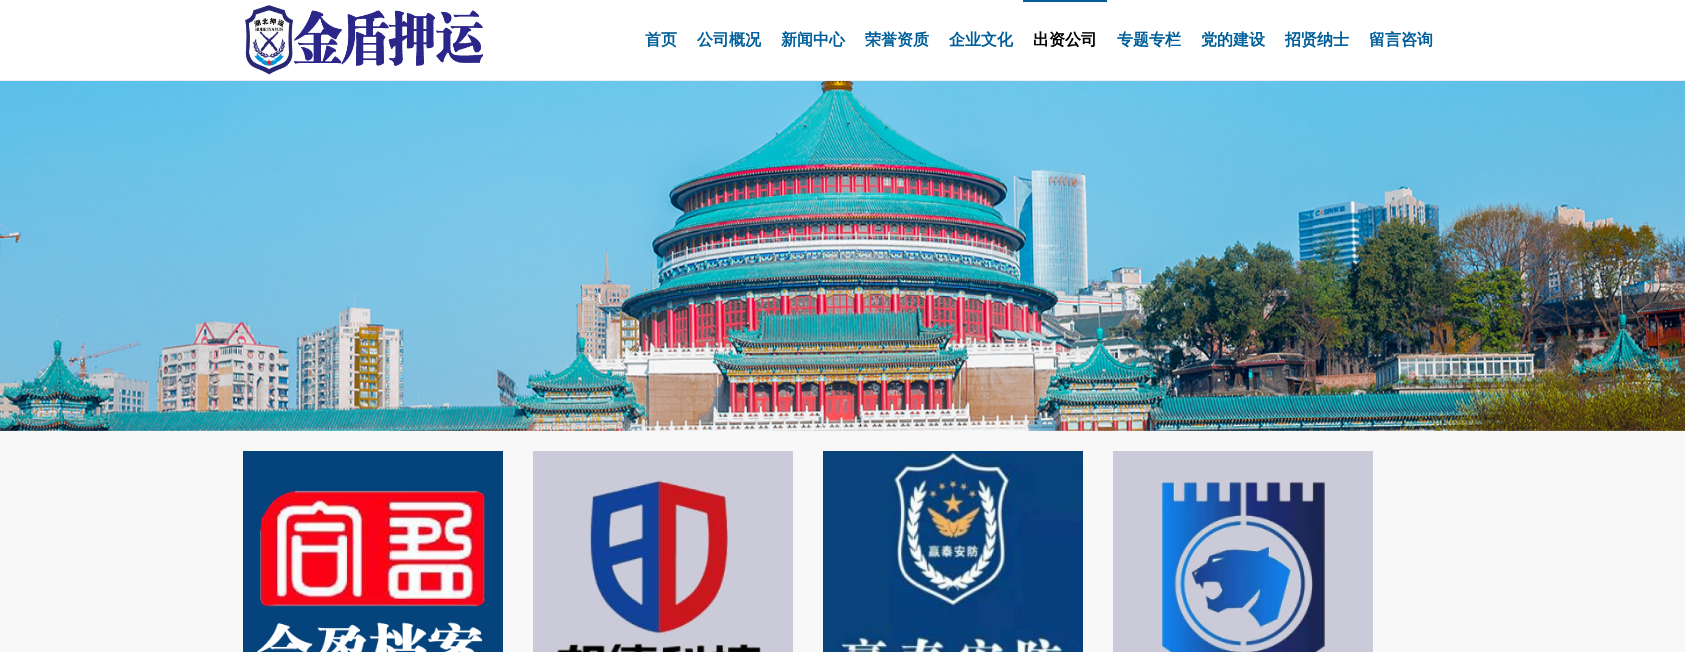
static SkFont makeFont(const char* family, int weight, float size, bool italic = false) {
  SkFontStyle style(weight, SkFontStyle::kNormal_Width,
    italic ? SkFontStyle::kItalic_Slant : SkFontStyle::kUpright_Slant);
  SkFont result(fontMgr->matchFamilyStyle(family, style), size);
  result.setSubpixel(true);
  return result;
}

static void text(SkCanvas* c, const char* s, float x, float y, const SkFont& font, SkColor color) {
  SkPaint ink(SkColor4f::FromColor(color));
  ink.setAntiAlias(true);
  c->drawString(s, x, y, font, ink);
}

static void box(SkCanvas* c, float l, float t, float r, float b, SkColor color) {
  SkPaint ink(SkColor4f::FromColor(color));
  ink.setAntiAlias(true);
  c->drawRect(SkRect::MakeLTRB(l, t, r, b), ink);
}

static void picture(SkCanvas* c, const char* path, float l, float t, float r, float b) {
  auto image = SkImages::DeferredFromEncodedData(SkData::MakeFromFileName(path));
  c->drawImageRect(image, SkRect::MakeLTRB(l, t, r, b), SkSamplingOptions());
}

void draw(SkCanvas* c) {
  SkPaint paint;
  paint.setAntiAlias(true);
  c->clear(0xfff8f8f8);
  box(c, 0, 0, 1685, 80, 0xffffffff);
  box(c, 0, 80, 1685, 81, 0xffeeeeee);
  picture(c, "img_01.png", 245, 5, 483, 75);
  SkFont face1 = makeFont("WenQuanYi Zen Hei", 700, 16);
  text(c, "首页", 645, 45, face1, 0xff005f9b);
  text(c, "公司概况", 697, 45, face1, 0xff005f9b);
  text(c, "新闻中心", 781, 45, face1, 0xff005f9b);
  text(c, "荣誉资质", 865, 45, face1, 0xff005f9b);
  text(c, "企业文化", 949, 45, face1, 0xff005f9b);
  box(c, 1023, 0, 1107, 2, 0xff005f9b);
  text(c, "出资公司", 1033, 45, face1, 0xff000000);
  text(c, "专题专栏", 1117, 45, face1, 0xff005f9b);
  text(c, "党的建设", 1201, 45, face1, 0xff005f9b);
  text(c, "招贤纳士", 1285, 45, face1, 0xff005f9b);
  text(c, "留言咨询", 1369, 45, face1, 0xff005f9b);
  picture(c, "img_02.png", 0, 81, 1685, 431);
  picture(c, "img_03.png", 243, 451, 503, 652);
  picture(c, "img_04.png", 533, 451, 793, 652);
  picture(c, "img_05.png", 823, 451, 1083, 652);
  picture(c, "img_06.png", 1113, 451, 1373, 652);
}
